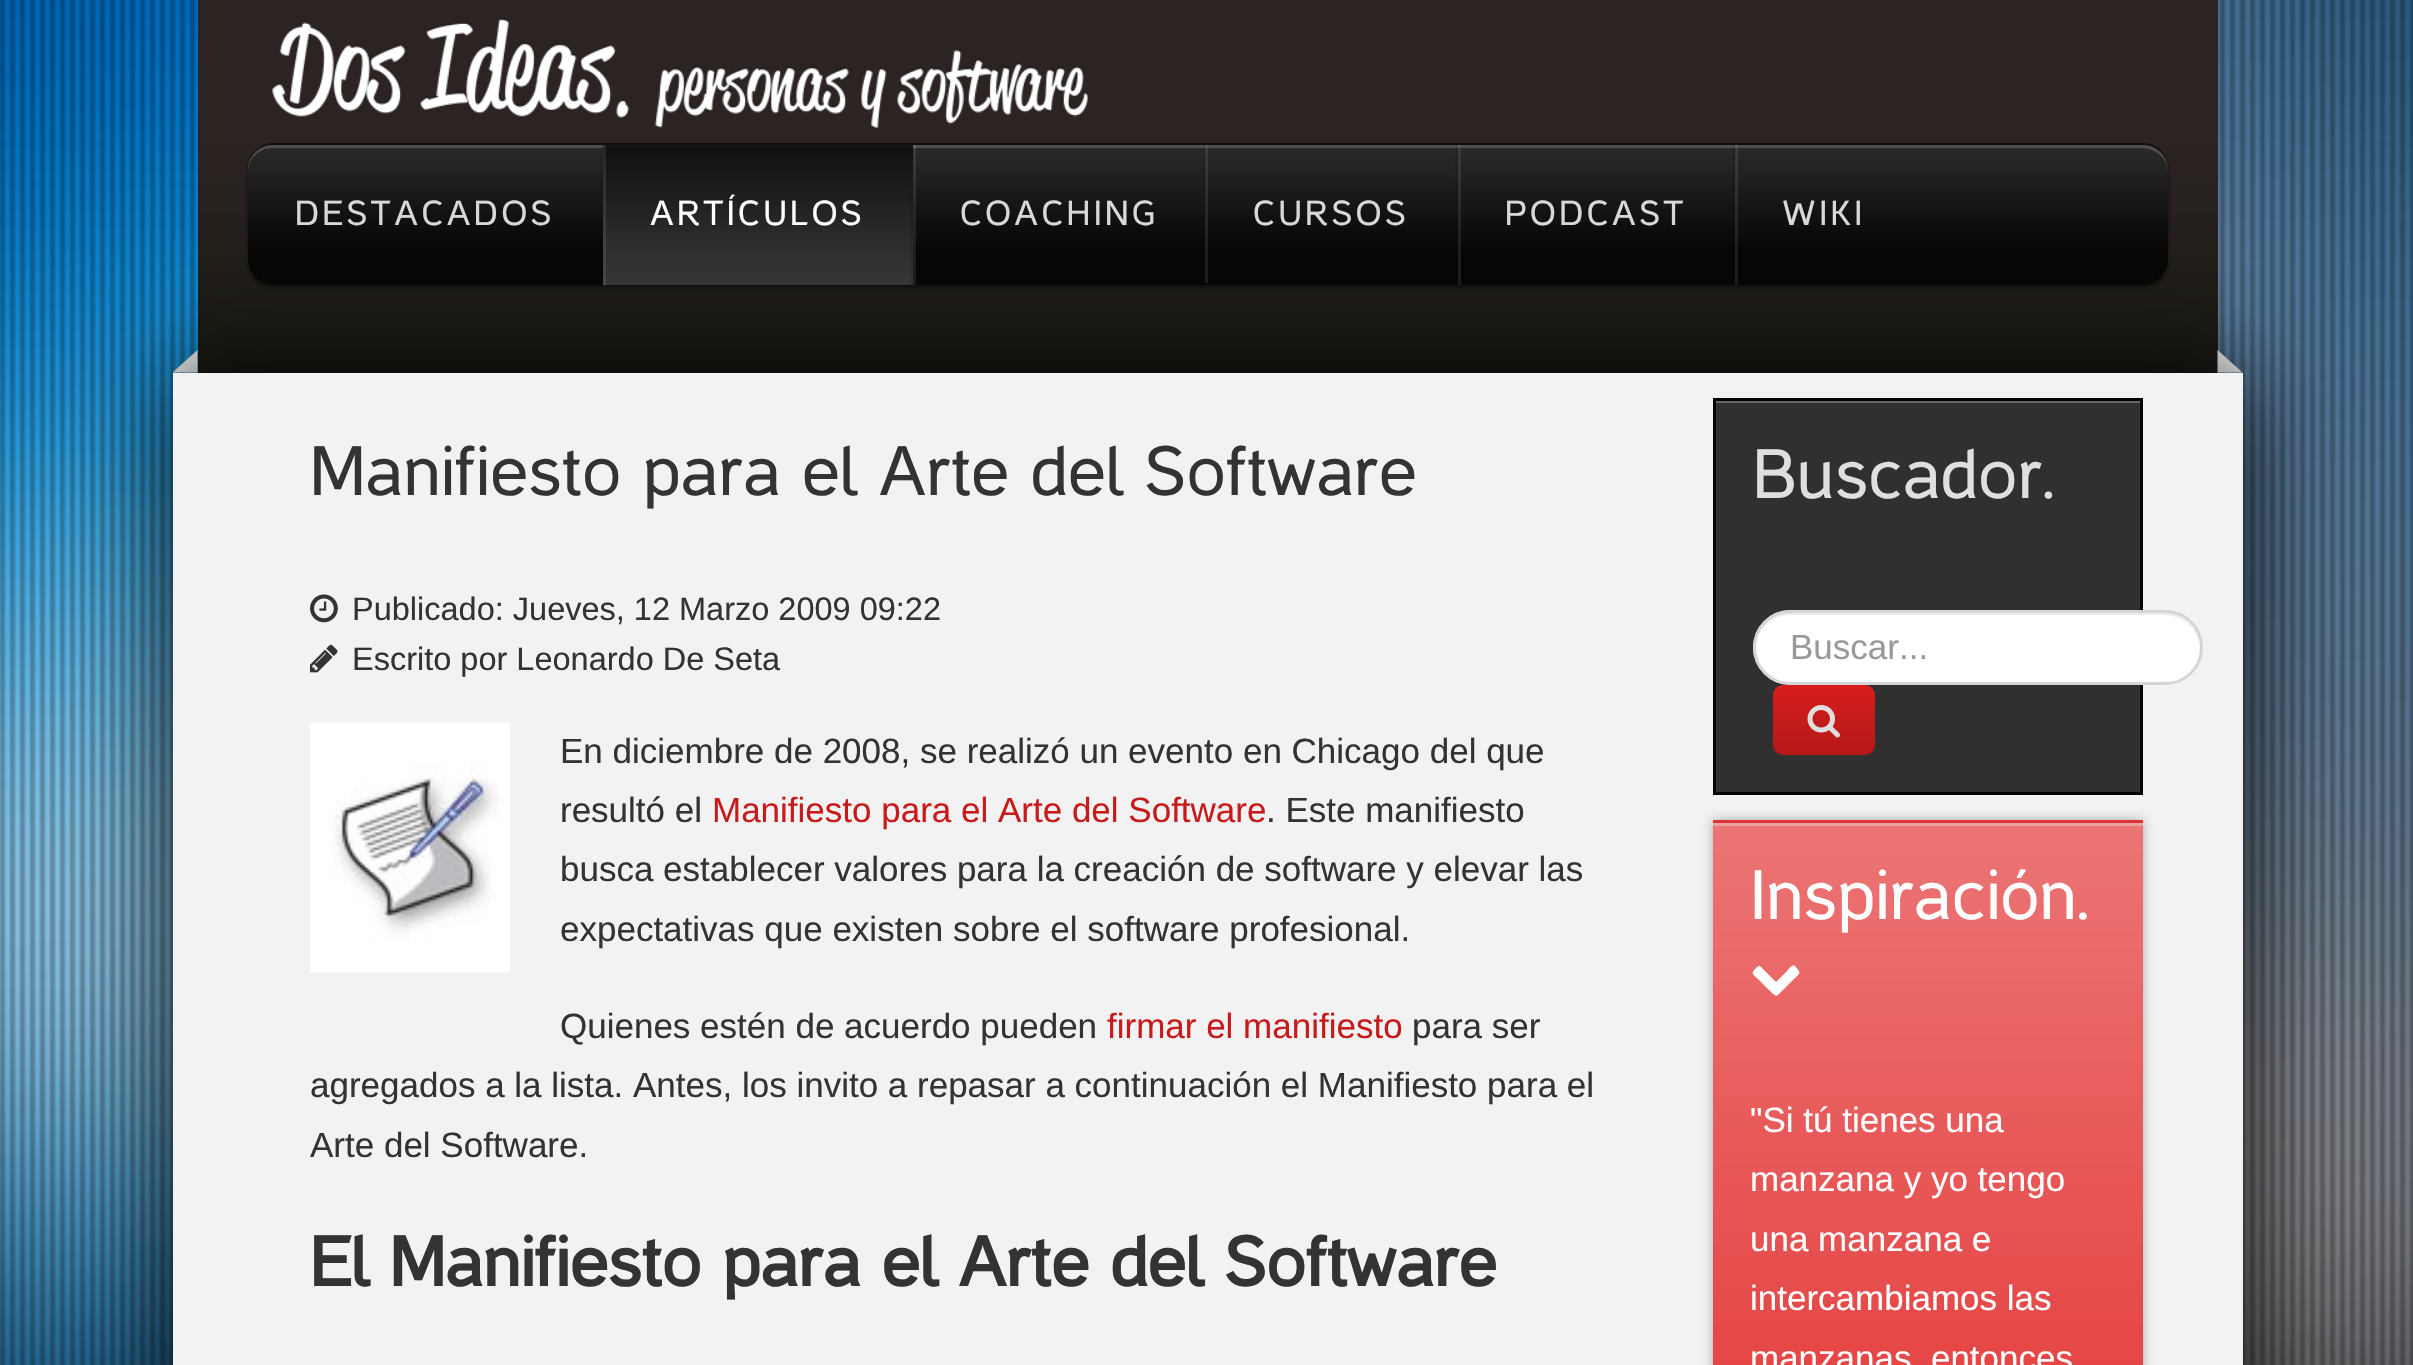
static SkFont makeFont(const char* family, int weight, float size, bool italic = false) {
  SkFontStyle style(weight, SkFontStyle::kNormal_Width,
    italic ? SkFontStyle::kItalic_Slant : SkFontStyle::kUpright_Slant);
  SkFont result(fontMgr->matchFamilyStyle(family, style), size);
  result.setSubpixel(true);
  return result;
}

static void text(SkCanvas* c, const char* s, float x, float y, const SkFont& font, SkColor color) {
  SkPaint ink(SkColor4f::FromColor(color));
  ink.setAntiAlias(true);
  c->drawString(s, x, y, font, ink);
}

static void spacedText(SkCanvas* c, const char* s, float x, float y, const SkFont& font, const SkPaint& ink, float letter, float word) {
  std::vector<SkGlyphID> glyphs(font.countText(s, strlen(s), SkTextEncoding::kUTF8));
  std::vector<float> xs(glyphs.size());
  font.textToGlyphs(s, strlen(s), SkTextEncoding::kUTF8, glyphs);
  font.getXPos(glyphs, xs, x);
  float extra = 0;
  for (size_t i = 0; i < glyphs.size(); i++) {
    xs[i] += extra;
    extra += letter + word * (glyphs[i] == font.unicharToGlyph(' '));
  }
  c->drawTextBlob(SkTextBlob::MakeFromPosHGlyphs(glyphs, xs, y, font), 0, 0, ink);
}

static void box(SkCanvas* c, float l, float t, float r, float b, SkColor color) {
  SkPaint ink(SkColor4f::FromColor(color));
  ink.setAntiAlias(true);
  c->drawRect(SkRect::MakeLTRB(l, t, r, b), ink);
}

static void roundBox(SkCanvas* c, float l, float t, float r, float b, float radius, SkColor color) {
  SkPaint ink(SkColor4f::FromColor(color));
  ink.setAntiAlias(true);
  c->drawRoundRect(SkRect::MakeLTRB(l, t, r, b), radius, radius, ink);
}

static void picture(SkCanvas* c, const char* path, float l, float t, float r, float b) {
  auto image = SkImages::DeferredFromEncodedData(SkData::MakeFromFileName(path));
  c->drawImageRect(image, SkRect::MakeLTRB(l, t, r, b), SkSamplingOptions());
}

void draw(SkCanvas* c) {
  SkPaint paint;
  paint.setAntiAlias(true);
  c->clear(0xffffffff);
  picture(c, "img_01.png", 0, 0, 2413, 1365);
  picture(c, "img_02.png", 0, 0, 2413, 1365);
  {
    const SkColor colors[] = {0xff2c2423, 0xff2c2423, 0xff191913};
    const float stops[] = {0, 0.35f, 1};
    const SkPoint ends[] = {{1208, 0}, {1208, 373}};
    paint.setShader(SkGradientShader::MakeLinear(ends, colors, stops, 3, SkTileMode::kClamp));
    paint.setAlpha(255);
  }
  c->drawRect(SkRect::MakeLTRB(198, 0, 2218, 373), paint);
  picture(c, "img_03.png", 272, 17, 1088, 128);
  c->save();
  c->clipPath(SkPathBuilder(SkPathFillType::kEvenOdd).moveTo(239, 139).lineTo(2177, 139).lineTo(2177, 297).lineTo(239, 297).close().moveTo(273, 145).lineTo(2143, 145).cubicTo(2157, 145, 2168, 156, 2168, 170).lineTo(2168, 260).cubicTo(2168, 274, 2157, 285, 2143, 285).lineTo(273, 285).cubicTo(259, 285, 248, 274, 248, 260).lineTo(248, 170).cubicTo(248, 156, 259, 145, 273, 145).close().detach(), true);
  paint.setShader(nullptr);
  paint.setColor(0x80000000);
  paint.setMaskFilter(SkMaskFilter::MakeBlur(kNormal_SkBlurStyle, 2.5f));
  c->drawRoundRect(SkRect::MakeLTRB(248, 148, 2168, 288), 25, 25, paint);
  paint.setMaskFilter(nullptr);
  c->restore();
  paint.setColor(0xfff0f0f0);
  c->drawPath(SkPathBuilder().moveTo(197.5f, 372.5f).lineTo(172.5f, 372.5f).lineTo(197.5f, 350).close().detach(), paint);
  c->drawPath(SkPathBuilder().moveTo(2242.5f, 372.5f).lineTo(2217.5f, 372.5f).lineTo(2217.5f, 350).close().detach(), paint);
  paint.setColor(0xe6000000);
  paint.setMaskFilter(SkMaskFilter::MakeBlur(kNormal_SkBlurStyle, 50));
  c->drawRect(SkRect::MakeLTRB(173, 373, 2243, 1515), paint);
  paint.setMaskFilter(nullptr);
  paint.setColor(0x99000000);
  c->drawPath(SkPathBuilder().moveTo(273, 143).cubicTo(261, 143, 251, 152, 249, 163).cubicTo(252, 153, 261, 145, 272, 145).lineTo(2142, 145).cubicTo(2156, 145, 2168, 156, 2168, 170).lineTo(2168, 260).lineTo(2167, 265).lineTo(2168, 258).lineTo(2168, 168).cubicTo(2168, 154, 2157, 143, 2143, 143).close().detach(), paint);
  roundBox(c, 248, 145, 2168, 285, 25, 0x6b000000);
  {
    const SkColor colors[] = {0xb3333333, 0xb3000000, 0xb3000000};
    const float stops[] = {0, 0.75f, 1};
    const SkPoint ends[] = {{1208, 145}, {1208, 285}};
    paint.setShader(SkGradientShader::MakeLinear(ends, colors, stops, 3, SkTileMode::kClamp));
    paint.setAlpha(255);
  }
  c->drawRoundRect(SkRect::MakeLTRB(248, 145, 2168, 285), 25, 25, paint);
  paint.setShader(nullptr);
  paint.setColor(0x33e1e1e1);
  c->drawPath(SkPathBuilder().moveTo(272, 148).lineTo(2142, 148).cubicTo(2156, 148, 2168, 159, 2168, 172).lineTo(2168, 170).cubicTo(2168, 156, 2157, 145, 2143, 145).lineTo(273, 145).cubicTo(259, 145, 248, 156, 248, 170).lineTo(248, 172).cubicTo(248, 159, 259, 148, 272, 148).close().detach(), paint);
  box(c, 600, 145, 603, 193, 0x1a000000);
  SkFont face1 = makeFont("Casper", 400, 35);
  paint.setColor(0xffd8d8d8);
  spacedText(c, "DESTACADOS", 295, 225, face1, paint, 3.5f, 0);
  box(c, 603, 145, 913, 285, 0x6b363636);
  {
    const SkColor colors[] = {0xb3000000, 0xb3333333, 0xb3404040};
    const float stops[] = {0, 0.7f, 1};
    const SkPoint ends[] = {{758, 145}, {758, 285}};
    paint.setShader(SkGradientShader::MakeLinear(ends, colors, stops, 3, SkTileMode::kClamp));
    paint.setAlpha(255);
  }
  c->drawRect(SkRect::MakeLTRB(603, 145, 913, 285), paint);
  box(c, 910, 185, 913, 285, 0x1a000000);
  box(c, 603, 145, 606, 285, 0x1ae1e1e1);
  paint.setShader(nullptr);
  paint.setColor(0xffffffff);
  spacedText(c, "ARTÍCULOS", 650, 225, face1, paint, 3.5f, 0);
  box(c, 1203, 145, 1206, 193, 0x1a000000);
  box(c, 913, 145, 916, 285, 0x1ae1e1e1);
  paint.setColor(0xffd8d8d8);
  spacedText(c, "COACHING", 960, 225, face1, paint, 3.5f, 0);
  box(c, 1455, 145, 1458, 193, 0x1a000000);
  box(c, 1205, 145, 1208, 283, 0x1ae1e1e1);
  spacedText(c, "CURSOS", 1253, 225, face1, paint, 3.5f, 0);
  box(c, 1733, 145, 1736, 193, 0x1a000000);
  box(c, 1458, 145, 1461, 285, 0x1ae1e1e1);
  spacedText(c, "PODCAST", 1505, 225, face1, paint, 3.5f, 0);
  box(c, 1735, 145, 1738, 285, 0x1ae1e1e1);
  spacedText(c, "WIKI", 1782, 225, face1, paint, 3.5f, 0);
  box(c, 173, 373, 2243, 1365, 0xfff2f2f2);
  SkFont face2 = makeFont("Casper", 400, 70);
  text(c, "Manifiesto para el Arte del Software", 310, 495, face2, 0xff333333);
  picture(c, "img_04.png", 310, 594, 338, 623);
  SkFont face3 = makeFont("Liberation Sans", 400, 32.5f);
  text(c, "Publicado: Jueves, 12 Marzo 2009 09:22", 352, 620, face3, 0xff333333);
  picture(c, "img_05.png", 310, 644, 338, 673);
  text(c, "Escrito por Leonardo De Seta", 352, 670, face3, 0xff333333);
  picture(c, "img_06.png", 310, 722, 510, 973);
  SkFont face4 = makeFont("Liberation Sans", 400, 35);
  text(c, "En diciembre de 2008, se realizó un evento en Chicago del que", 560, 763, face4, 0xff333333);
  text(c, "resultó el", 560, 822, face4, 0xff333333);
  text(c, "Manifiesto para el Arte del Software", 712, 822, face4, 0xffc71b1b);
  text(c, ". Este manifiesto", 1266, 822, face4, 0xff333333);
  text(c, "busca establecer valores para la creación de software y elevar las", 560, 881, face4, 0xff333333);
  text(c, "expectativas que existen sobre el software profesional.", 560, 941, face4, 0xff333333);
  text(c, "Quienes estén de acuerdo pueden", 560, 1038, face4, 0xff333333);
  text(c, "firmar el manifiesto", 1107, 1038, face4, 0xffc71b1b);
  text(c, "para ser", 1412, 1038, face4, 0xff333333);
  text(c, "agregados a la lista. Antes, los invito a repasar a continuación el Manifiesto para el", 310, 1097, face4, 0xff333333);
  text(c, "Arte del Software.", 310, 1157, face4, 0xff333333);
  SkFont face5 = makeFont("Casper", 700, 70);
  text(c, "El Manifiesto para el Arte del Software", 310, 1286, face5, 0xff333333);
  box(c, 1716, 403, 2140, 792, 0xff303030);
  box(c, 1715, 401, 2140, 403, 0xff656565);
  paint.setStyle(SkPaint::kStroke_Style);
  paint.setStrokeWidth(3);
  paint.setColor(0xff000000);
  c->drawRect(SkRect::MakeLTRB(1714.5f, 399.5f, 2141.5f, 793.5f), paint);
  text(c, "Buscador.", 1753, 498, face2, 0xffdfdfdf);
  roundBox(c, 1753, 610, 2203, 685, 37.5f, 0xffffffff);
  paint.setStyle(SkPaint::kFill_Style);
  paint.setColor(0xffececec);
  c->drawPath(SkPathBuilder().moveTo(1790, 615).lineTo(2165, 615).cubicTo(2184, 615, 2199, 630, 2200, 649).lineTo(2200, 648).cubicTo(2200, 629, 2184, 613, 2165, 613).lineTo(1790, 613).cubicTo(1771, 613, 1755, 629, 1755, 648).lineTo(1755, 649).cubicTo(1756, 630, 1771, 615, 1790, 615).close().detach(), paint);
  paint.setStyle(SkPaint::kStroke_Style);
  paint.setColor(0xffd5d5d5);
  c->drawRoundRect(SkRect::MakeLTRB(1754.5f, 611.5f, 2201.5f, 683.5f), 36, 36, paint);
  text(c, "Buscar...", 1790, 659, face4, 0xff999999);
  paint.setStyle(SkPaint::kFill_Style);
  {
    const SkColor colors[] = {0xffd91d1d, 0xffc71b1b, 0xffb51919};
    const float stops[] = {0, 0.45f, 1};
    const SkPoint ends[] = {{1824, 685}, {1824, 755}};
    paint.setShader(SkGradientShader::MakeLinear(ends, colors, stops, 3, SkTileMode::kClamp));
    paint.setAlpha(255);
  }
  c->drawRoundRect(SkRect::MakeLTRB(1773, 685, 1875, 755), 10, 10, paint);
  picture(c, "img_07.png", 1807, 705, 1840, 738);
  paint.setShader(nullptr);
  paint.setColor(0x4d000000);
  paint.setMaskFilter(SkMaskFilter::MakeBlur(kNormal_SkBlurStyle, 5));
  c->drawRect(SkRect::MakeLTRB(1713, 820, 2143, 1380), paint);
  paint.setMaskFilter(nullptr);
  box(c, 1713, 820, 2143, 823, 0xffdf3434);
  {
    const SkColor colors[] = {0xffec7575, 0xffe43b3b, 0xffc71b1b};
    const float stops[] = {0, 0.5f, 1};
    const SkPoint ends[] = {{1928, 823}, {1928, 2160}};
    paint.setShader(SkGradientShader::MakeLinear(ends, colors, stops, 3, SkTileMode::kClamp));
    paint.setAlpha(255);
  }
  c->drawRect(SkRect::MakeLTRB(1713, 826, 2143, 1365), paint);
  box(c, 1713, 823, 2143, 826, 0xffe8a0a0);
  text(c, "Inspiración.", 1750, 919, face2, 0xffffffff);
  paint.setShader(nullptr);
  paint.setColor(0xffffffff);
  c->drawPath(SkPathBuilder().moveTo(1799, 974).cubicTo(1801, 972, 1797, 969, 1796, 967).cubicTo(1792, 963, 1790, 968, 1787, 971).lineTo(1776, 982).lineTo(1760, 966).cubicTo(1759, 965, 1758, 967, 1757, 967).cubicTo(1750, 974, 1752, 973, 1760, 981).lineTo(1771, 992).cubicTo(1777, 997, 1776, 997, 1781, 992).close().detach(), paint);
  text(c, "\"Si tú tienes una", 1750, 1132, face4, 0xffffffff);
  text(c, "manzana y yo tengo", 1750, 1191, face4, 0xffffffff);
  text(c, "una manzana e", 1750, 1251, face4, 0xffffffff);
  text(c, "intercambiamos las", 1750, 1310, face4, 0xffffffff);
  text(c, "manzanas, entonces", 1750, 1370, face4, 0xffffffff);
}
